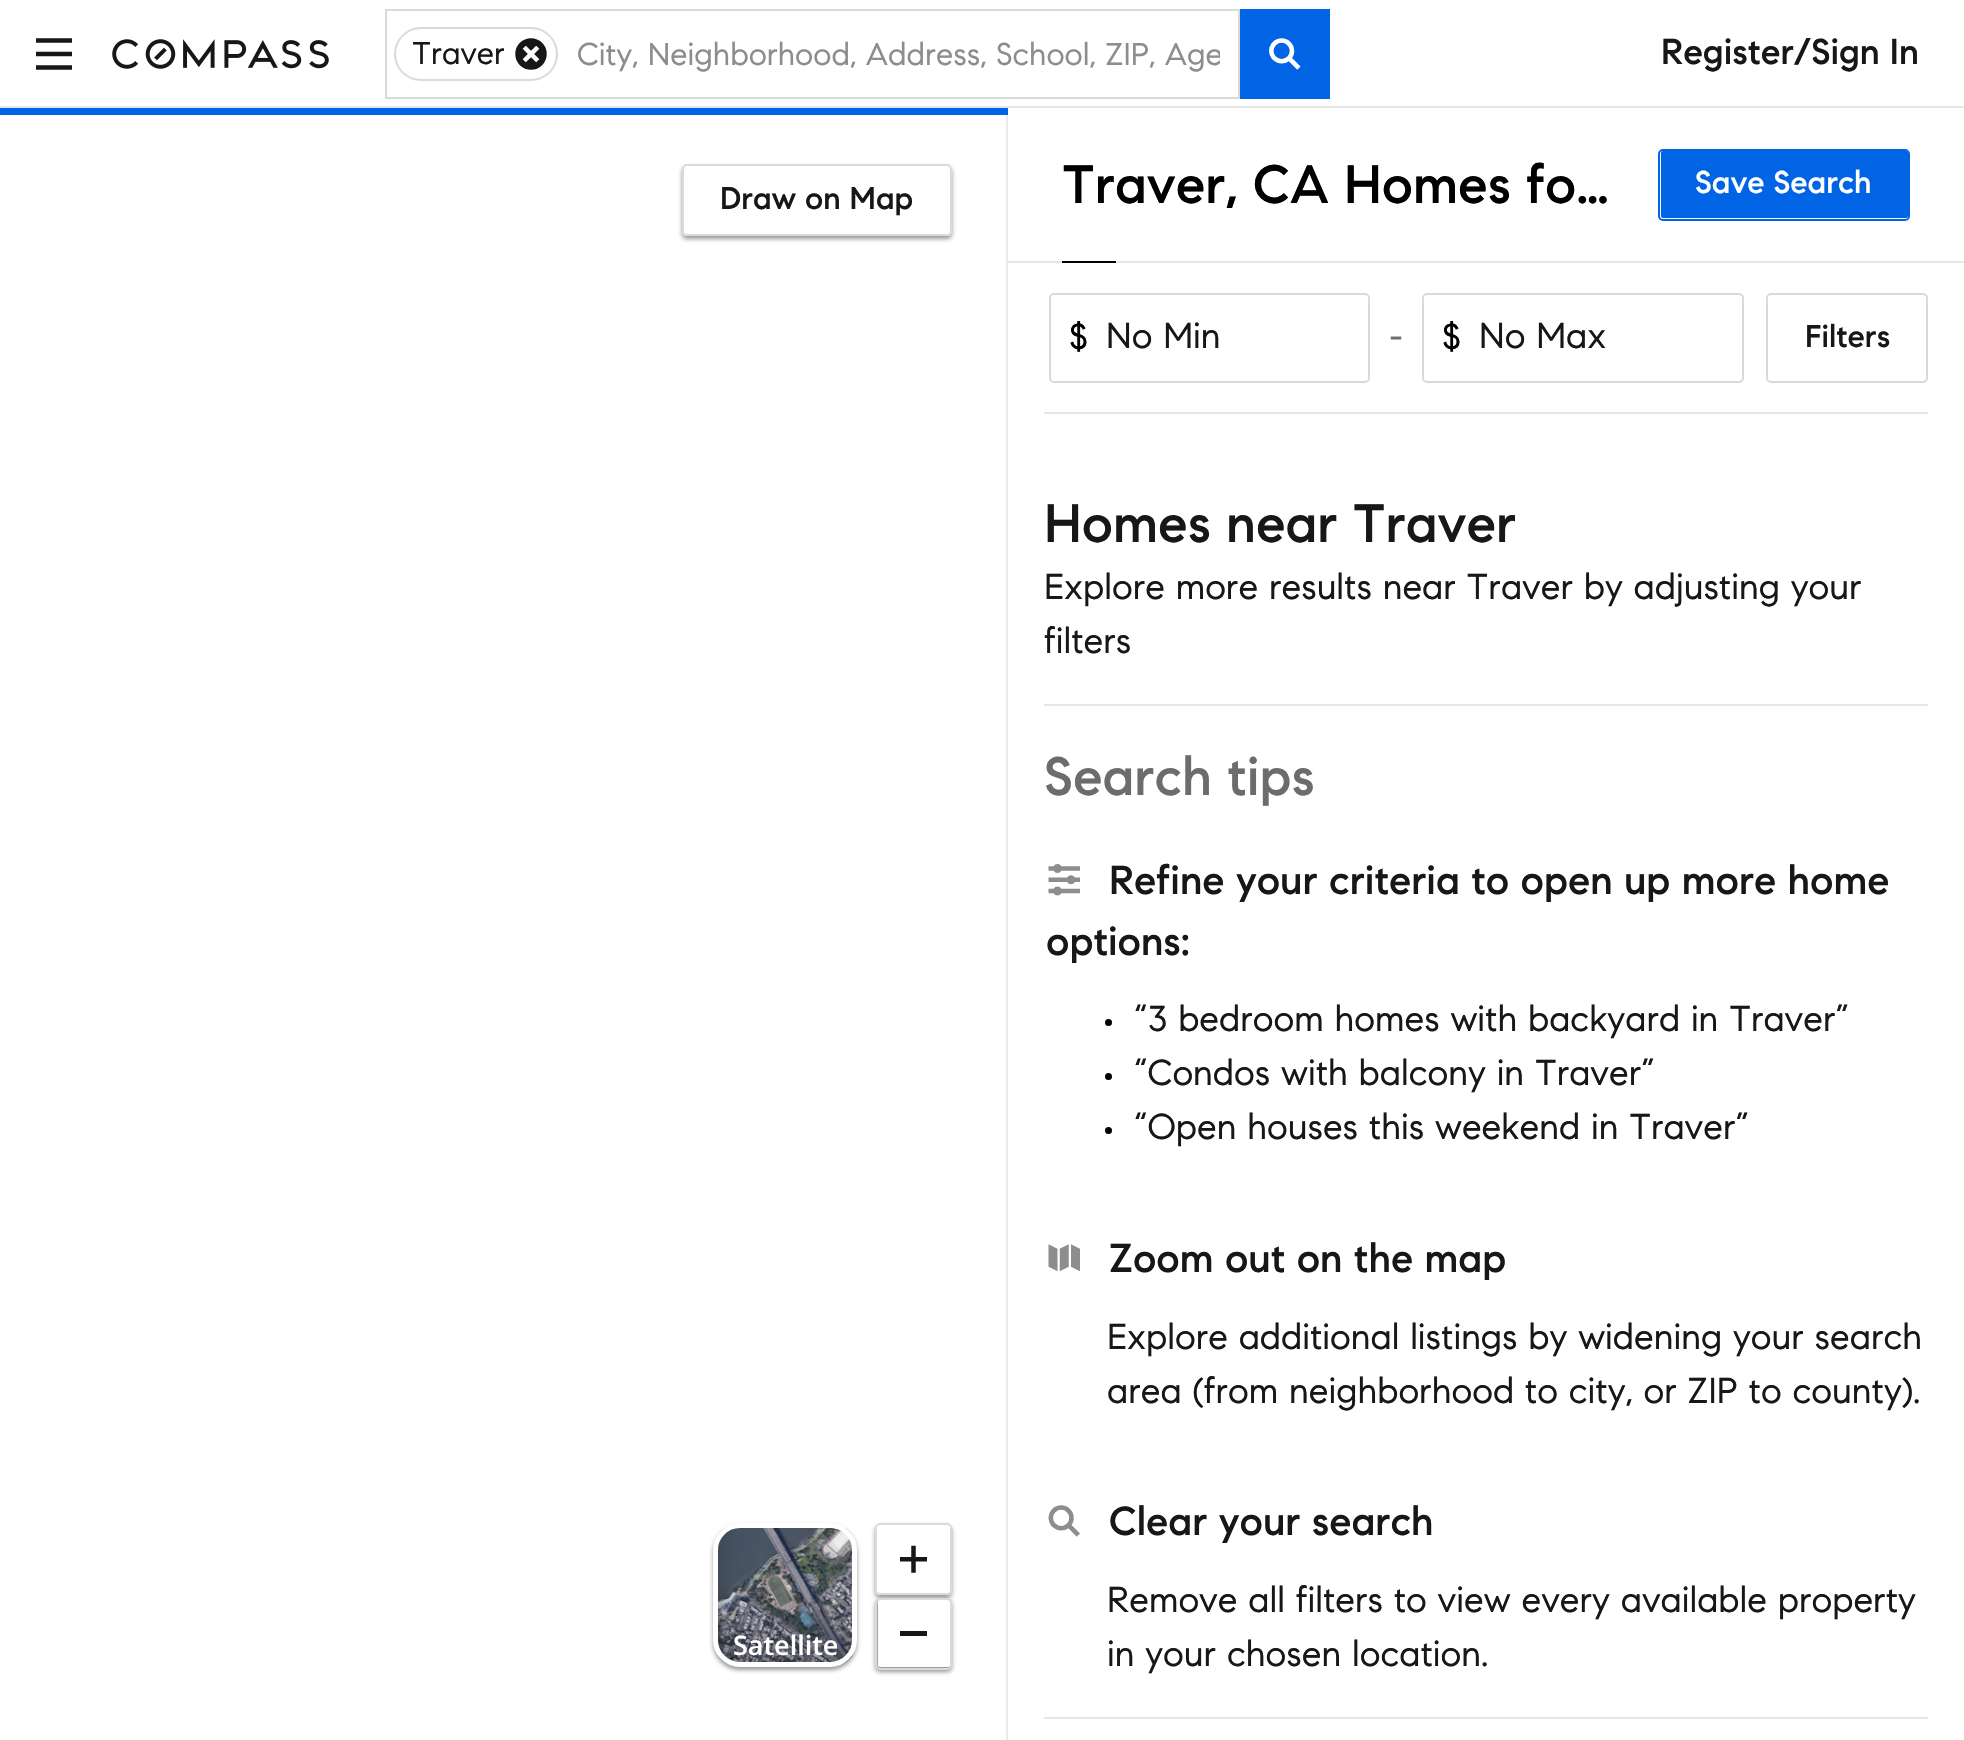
static SkFont makeFont(const char* family, int weight, float size, bool italic = false) {
  SkFontStyle style(weight, SkFontStyle::kNormal_Width,
    italic ? SkFontStyle::kItalic_Slant : SkFontStyle::kUpright_Slant);
  SkFont result(fontMgr->matchFamilyStyle(family, style), size);
  result.setSubpixel(true);
  return result;
}

static void text(SkCanvas* c, const char* s, float x, float y, const SkFont& font, SkColor color) {
  SkPaint ink(SkColor4f::FromColor(color));
  ink.setAntiAlias(true);
  c->drawString(s, x, y, font, ink);
}

static void box(SkCanvas* c, float l, float t, float r, float b, SkColor color) {
  SkPaint ink(SkColor4f::FromColor(color));
  ink.setAntiAlias(true);
  c->drawRect(SkRect::MakeLTRB(l, t, r, b), ink);
}

static void roundBox(SkCanvas* c, float l, float t, float r, float b, float radius, SkColor color) {
  SkPaint ink(SkColor4f::FromColor(color));
  ink.setAntiAlias(true);
  c->drawRoundRect(SkRect::MakeLTRB(l, t, r, b), radius, radius, ink);
}

static void picture(SkCanvas* c, const char* path, float l, float t, float r, float b) {
  auto image = SkImages::DeferredFromEncodedData(SkData::MakeFromFileName(path));
  c->drawImageRect(image, SkRect::MakeLTRB(l, t, r, b), SkSamplingOptions());
}

void draw(SkCanvas* c) {
  SkPaint paint;
  paint.setAntiAlias(true);
  c->clear(0xffffffff);
  box(c, 0, 106, 1964, 108, 0xffe6e6e6);
  picture(c, "img_01.png", 36, 38, 72, 70);
  picture(c, "img_02.png", 112, 39, 329, 69);
  paint.setStyle(SkPaint::kStroke_Style);
  paint.setStrokeWidth(2);
  paint.setColor(0xffdadada);
  c->drawRect(SkRect::MakeLTRB(386, 10, 1239, 98), paint);
  c->drawRoundRect(SkRect::MakeLTRB(395, 28, 557, 80), 26, 26, paint);
  c->save();
  c->clipRect(SkRect::MakeLTRB(412, 34, 504, 74));
  SkFont face1 = makeFont("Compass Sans", 400, 31.5f);
  text(c, "Traver", 412, 64, face1, 0xff171717);
  c->restore();
  picture(c, "img_03.png", 515, 38, 547, 70);
  c->save();
  c->clipRect(SkRect::MakeLTRB(576, 36, 1220, 74));
  text(c, "City, Neighborhood, Address, School, ZIP, Age", 577, 65, face1, 0xff8d8d8d);
  c->restore();
  box(c, 1240, 9, 1330, 99, 0xff0064e5);
  picture(c, "img_04.png", 1269, 38, 1301, 70);
  SkFont face2 = makeFont("Compass Sans", 500, 36);
  text(c, "Register/Sign In", 1661, 64, face2, 0xff171717);
  paint.setStyle(SkPaint::kFill_Style);
  paint.setColor(0x14000000);
  c->drawPath(SkPathBuilder().moveTo(1008, 108).lineTo(1008, 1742).lineTo(1006, 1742).lineTo(1006, 110).close().detach(), paint);
  box(c, 0, 108, 1008, 115, 0xff0064e5);
  c->save();
  c->clipPath(SkPathBuilder(SkPathFillType::kEvenOdd).moveTo(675, 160).lineTo(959, 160).lineTo(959, 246).lineTo(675, 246).close().moveTo(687, 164).lineTo(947, 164).cubicTo(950, 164, 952, 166, 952, 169).lineTo(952, 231).cubicTo(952, 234, 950, 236, 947, 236).lineTo(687, 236).cubicTo(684, 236, 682, 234, 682, 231).lineTo(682, 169).cubicTo(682, 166, 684, 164, 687, 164).close().detach(), true);
  paint.setColor(0x66000000);
  paint.setMaskFilter(SkMaskFilter::MakeBlur(kNormal_SkBlurStyle, 2));
  c->drawRoundRect(SkRect::MakeLTRB(682, 167, 952, 239), 5, 5, paint);
  paint.setMaskFilter(nullptr);
  c->restore();
  paint.setStyle(SkPaint::kStroke_Style);
  paint.setColor(0xffdadada);
  c->drawRoundRect(SkRect::MakeLTRB(683, 165, 951, 235), 4, 4, paint);
  SkFont face3 = makeFont("Compass Sans", 500, 31.5f);
  text(c, "Draw on Map", 720, 209, face3, 0xff171717);
  paint.setStyle(SkPaint::kFill_Style);
  paint.setColor(0x66000000);
  paint.setMaskFilter(SkMaskFilter::MakeBlur(kNormal_SkBlurStyle, 2));
  c->drawRoundRect(SkRect::MakeLTRB(713, 1526, 857, 1670), 27, 27, paint);
  paint.setMaskFilter(nullptr);
  picture(c, "img_05.png", 717, 1527, 853, 1663);
  paint.setStyle(SkPaint::kStroke_Style);
  paint.setStrokeWidth(5);
  paint.setColor(0xffffffff);
  c->drawRoundRect(SkRect::MakeLTRB(715.5f, 1525.5f, 854.5f, 1664.5f), 24.5f, 24.5f, paint);
  SkFont face4 = makeFont("Open Sans", 600, 27);
  text(c, "Satellite", 733, 1655, face4, 0xffffffff);
  c->save();
  c->clipPath(SkPathBuilder(SkPathFillType::kEvenOdd).moveTo(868, 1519).lineTo(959, 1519).lineTo(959, 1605).lineTo(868, 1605).close().moveTo(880, 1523).lineTo(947, 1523).cubicTo(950, 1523, 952, 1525, 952, 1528).lineTo(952, 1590).cubicTo(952, 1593, 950, 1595, 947, 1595).lineTo(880, 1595).cubicTo(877, 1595, 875, 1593, 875, 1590).lineTo(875, 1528).cubicTo(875, 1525, 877, 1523, 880, 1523).close().detach(), true);
  paint.setStyle(SkPaint::kFill_Style);
  paint.setColor(0x66000000);
  paint.setMaskFilter(SkMaskFilter::MakeBlur(kNormal_SkBlurStyle, 2));
  c->drawRoundRect(SkRect::MakeLTRB(875, 1526, 952, 1598), 5, 5, paint);
  paint.setMaskFilter(nullptr);
  c->restore();
  paint.setStyle(SkPaint::kStroke_Style);
  paint.setStrokeWidth(2);
  paint.setColor(0xffdadada);
  c->drawRoundRect(SkRect::MakeLTRB(876, 1524, 951, 1594), 4, 4, paint);
  picture(c, "img_06.png", 900, 1545, 927, 1573);
  paint.setStyle(SkPaint::kFill_Style);
  paint.setColor(0x66000000);
  paint.setMaskFilter(SkMaskFilter::MakeBlur(kNormal_SkBlurStyle, 2));
  c->drawRoundRect(SkRect::MakeLTRB(875, 1600, 952, 1672), 5, 5, paint);
  paint.setMaskFilter(nullptr);
  roundBox(c, 878, 1600, 950, 1667, 2, 0xffffffff);
  paint.setStyle(SkPaint::kStroke_Style);
  paint.setColor(0xffdadada);
  c->drawRoundRect(SkRect::MakeLTRB(876, 1599, 951, 1669), 4, 4, paint);
  box(c, 900, 1631, 927, 1636, 0xff171717);
  box(c, 1008, 261, 1964, 263, 0xffe6e6e6);
  SkFont face5 = makeFont("Compass Sans", 500, 54);
  text(c, "Traver, CA Homes fo…", 1062, 203, face5, 0xff000000);
  roundBox(c, 1661, 151, 1908, 218, 2, 0xff0064e5);
  paint.setColor(0xff0064e5);
  c->drawRoundRect(SkRect::MakeLTRB(1659, 150, 1909, 220), 4, 4, paint);
  text(c, "Save Search", 1695, 193, face3, 0xffffffff);
  box(c, 1062, 261, 1116, 263, 0xff000000);
  paint.setColor(0xffdadada);
  c->drawRoundRect(SkRect::MakeLTRB(1050, 294, 1369, 382), 4, 4, paint);
  SkFont face6 = makeFont("Compass Sans", 400, 36);
  text(c, "$", 1069, 349, face6, 0xff000000);
  text(c, "No Min", 1106, 348, face6, 0xff171717);
  text(c, "-", 1389, 349, face6, 0xff6c6c6c);
  c->drawRoundRect(SkRect::MakeLTRB(1423, 294, 1743, 382), 4, 4, paint);
  text(c, "$", 1442, 349, face6, 0xff000000);
  text(c, "No Max", 1479, 348, face6, 0xff171717);
  c->drawRoundRect(SkRect::MakeLTRB(1767, 294, 1927, 382), 4, 4, paint);
  text(c, "Filters", 1805, 347, face3, 0xff171717);
  box(c, 1044, 412, 1928, 414, 0xffe6e6e6);
  box(c, 1044, 704, 1928, 706, 0xffe6e6e6);
  text(c, "Homes near Traver", 1044, 542, face5, 0xff171717);
  text(c, "Explore more results near Traver by adjusting your", 1044, 599, face6, 0xff171717);
  text(c, "filters", 1044, 653, face6, 0xff171717);
  box(c, 1044, 1717, 1928, 1719, 0xffe6e6e6);
  text(c, "Search tips", 1044, 795, face5, 0xff6c6c6c);
  picture(c, "img_07.png", 1048, 864, 1080, 896);
  SkFont face7 = makeFont("Compass Sans", 500, 40.5f);
  text(c, "Refine your criteria to open up more home", 1109, 894, face7, 0xff171717);
  text(c, "options:", 1046, 955, face7, 0xff171717);
  paint.setStyle(SkPaint::kFill_Style);
  paint.setColor(0xff000000);
  c->drawCircle(1108.5f, 1022.5f, 3.5f, paint);
  text(c, "“3 bedroom homes with backyard in Traver”", 1134, 1031, face6, 0xff171717);
  c->drawCircle(1108.5f, 1076.5f, 3.5f, paint);
  text(c, "“Condos with balcony in Traver”", 1134, 1085, face6, 0xff171717);
  c->drawCircle(1108.5f, 1130.5f, 3.5f, paint);
  text(c, "“Open houses this weekend in Traver”", 1134, 1139, face6, 0xff171717);
  picture(c, "img_08.png", 1048, 1244, 1080, 1272);
  text(c, "Zoom out on the map", 1109, 1272, face7, 0xff171717);
  text(c, "Explore additional listings by widening your search", 1107, 1349, face6, 0xff171717);
  text(c, "area (from neighborhood to city, or ZIP to county).", 1107, 1403, face6, 0xff171717);
  picture(c, "img_09.png", 1048, 1505, 1080, 1537);
  text(c, "Clear your search", 1109, 1535, face7, 0xff171717);
  text(c, "Remove all filters to view every available property", 1107, 1612, face6, 0xff171717);
  text(c, "in your chosen location.", 1107, 1666, face6, 0xff171717);
}
